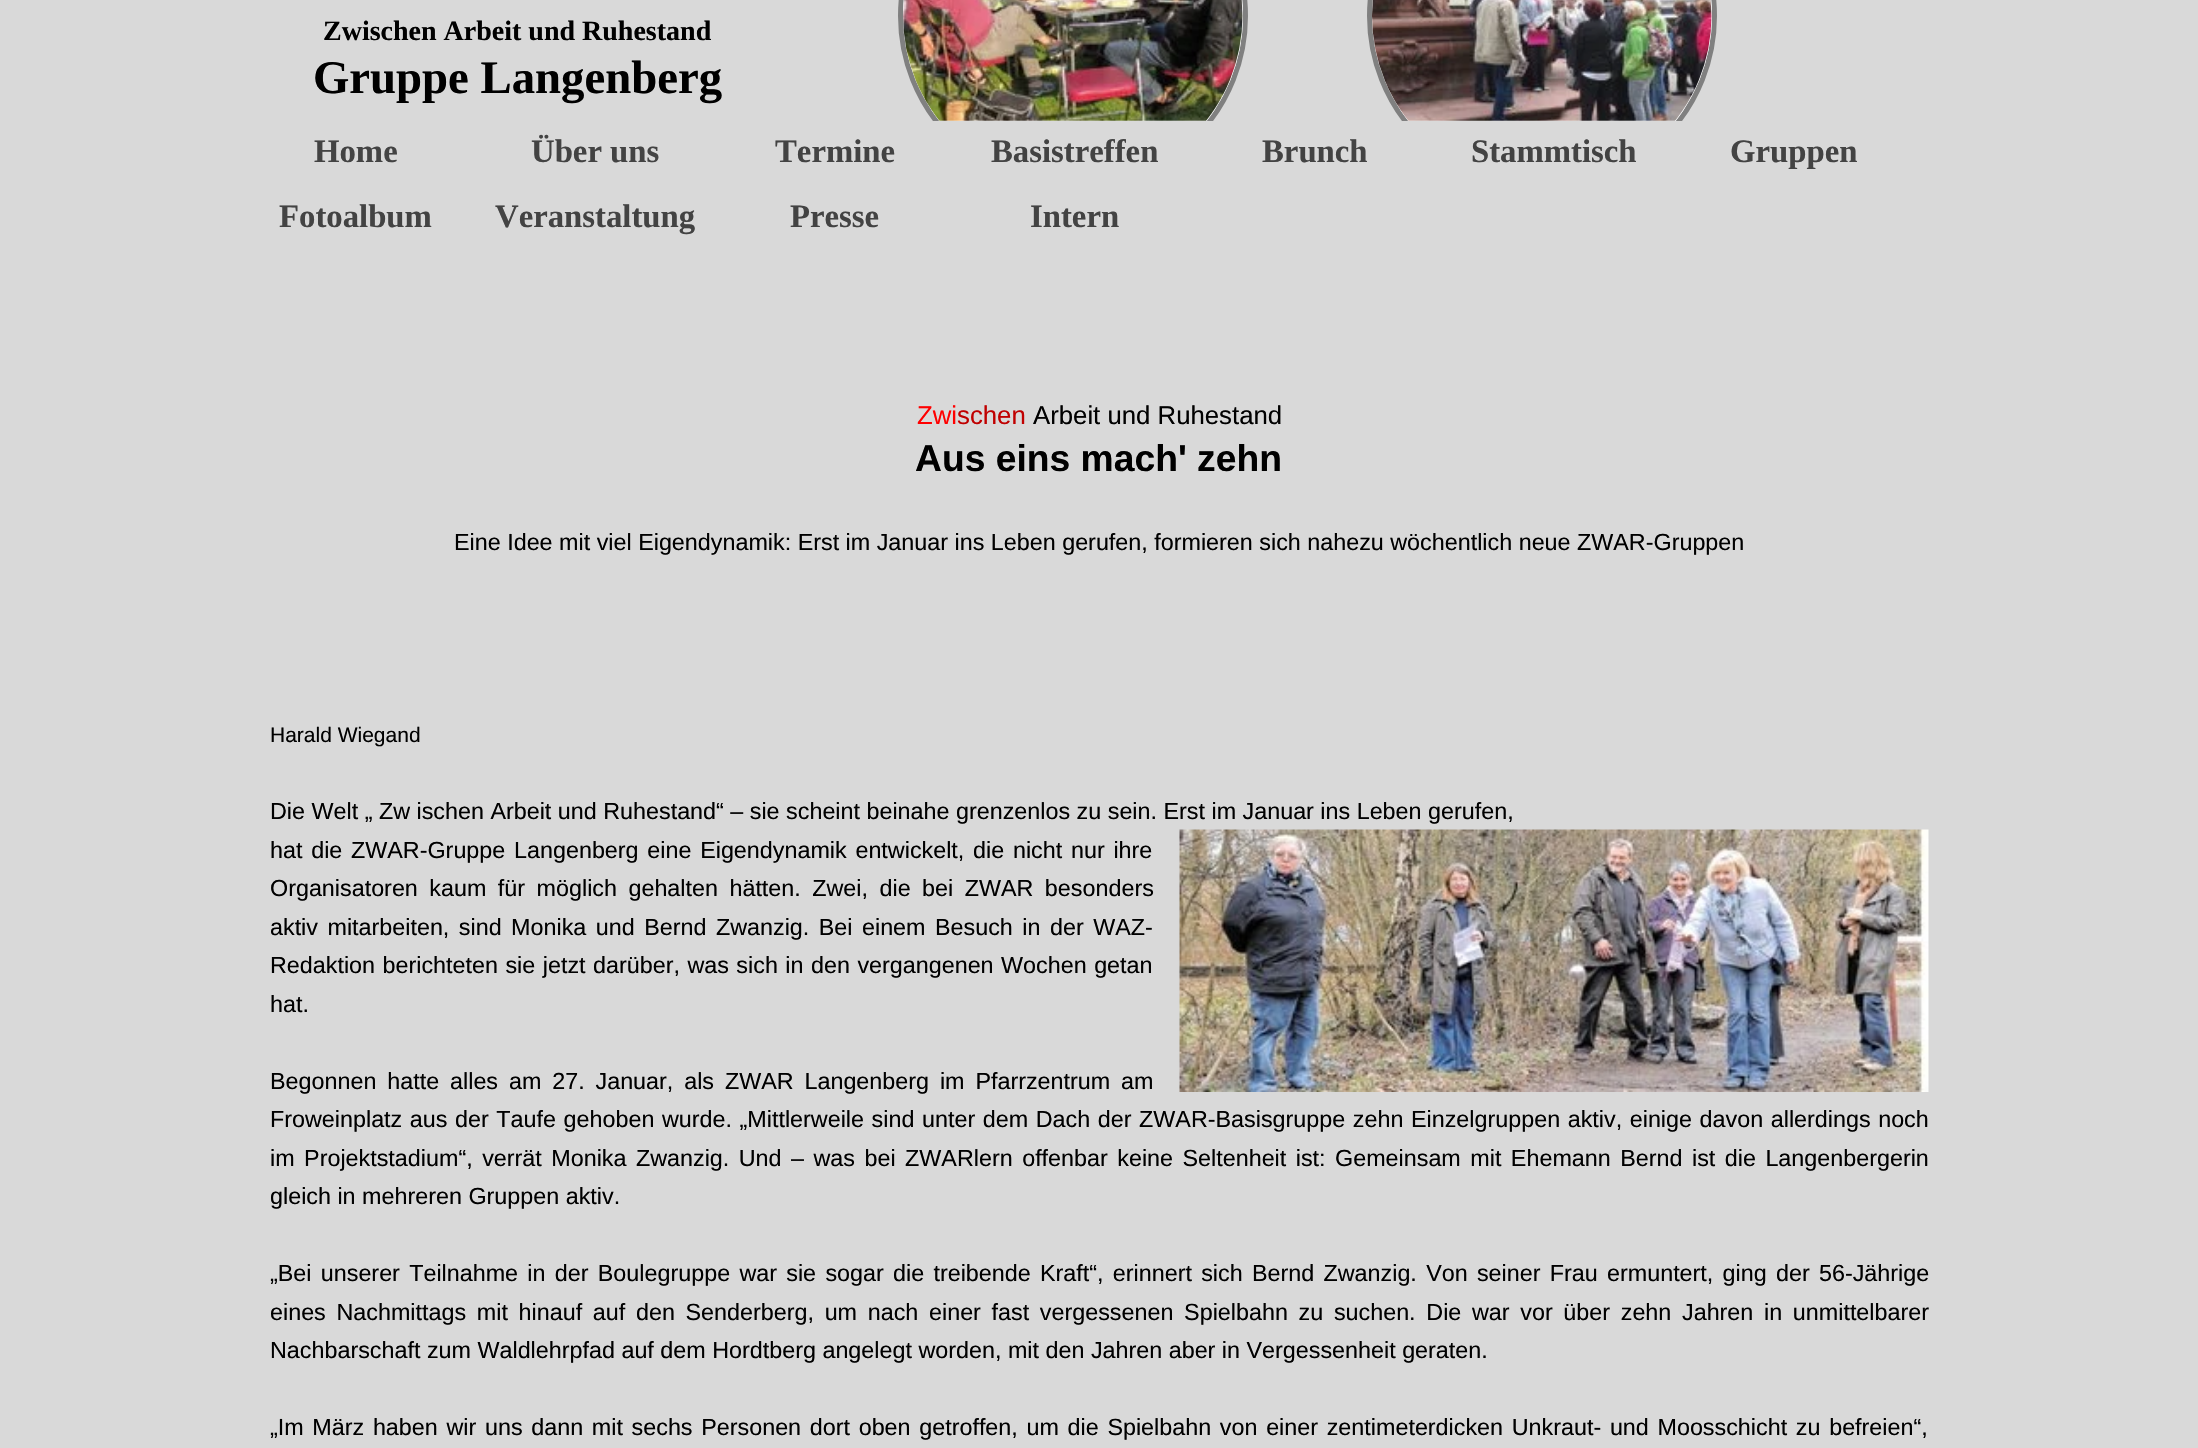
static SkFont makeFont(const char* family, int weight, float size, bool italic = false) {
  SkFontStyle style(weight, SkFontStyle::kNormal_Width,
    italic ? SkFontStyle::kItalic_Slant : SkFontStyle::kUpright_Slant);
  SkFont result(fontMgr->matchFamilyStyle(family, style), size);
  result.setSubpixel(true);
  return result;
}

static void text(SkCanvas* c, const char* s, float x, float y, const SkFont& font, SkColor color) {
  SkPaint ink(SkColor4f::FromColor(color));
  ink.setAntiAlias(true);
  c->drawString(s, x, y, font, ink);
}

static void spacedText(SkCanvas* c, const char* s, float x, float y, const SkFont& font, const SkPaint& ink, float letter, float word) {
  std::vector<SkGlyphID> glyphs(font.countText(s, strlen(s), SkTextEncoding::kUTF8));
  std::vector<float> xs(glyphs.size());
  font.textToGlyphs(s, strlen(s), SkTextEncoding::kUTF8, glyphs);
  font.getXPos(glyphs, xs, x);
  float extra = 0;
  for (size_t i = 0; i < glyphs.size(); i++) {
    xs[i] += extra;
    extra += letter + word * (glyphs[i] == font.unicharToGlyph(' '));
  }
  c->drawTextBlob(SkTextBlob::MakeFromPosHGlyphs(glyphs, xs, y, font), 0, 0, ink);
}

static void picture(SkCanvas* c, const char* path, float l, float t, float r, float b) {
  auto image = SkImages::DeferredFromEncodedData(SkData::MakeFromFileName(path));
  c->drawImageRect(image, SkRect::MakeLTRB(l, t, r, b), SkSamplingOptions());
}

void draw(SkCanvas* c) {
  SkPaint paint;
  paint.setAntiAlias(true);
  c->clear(0xffd9d9d9);
  SkFont face1 = makeFont("Liberation Serif", 700, 28);
  text(c, "Zwischen Arbeit und Ruhestand", 323, 40, face1, 0xff000000);
  SkFont face2 = makeFont("Liberation Serif", 700, 32.75f);
  text(c, "Basistreffen", 991, 162, face2, 0xff434343);
  c->save();
  c->clipRect(SkRect::MakeLTRB(833, 0, 1314, 121));
  paint.setStyle(SkPaint::kStroke_Style);
  paint.setStrokeWidth(5);
  paint.setColor(0xff808080);
  c->drawCircle(1073, 16, 172.5f, paint);
  paint.setStyle(SkPaint::kFill_Style);
  paint.setColor(0xffffffff);
  c->drawCircle(1073, 16, 170, paint);
  c->restore();
  picture(c, "img_01.png", 903, 0, 1243, 121);
  c->save();
  c->clipRect(SkRect::MakeLTRB(1323, 0, 1761, 121));
  paint.setStyle(SkPaint::kStroke_Style);
  paint.setColor(0xff808080);
  c->drawCircle(1542, 16, 172.5f, paint);
  paint.setStyle(SkPaint::kFill_Style);
  paint.setColor(0xffffffff);
  c->drawCircle(1542, 16, 170, paint);
  c->restore();
  picture(c, "img_02.png", 1372, 0, 1712, 121);
  SkFont face3 = makeFont("Liberation Serif", 700, 46.75f);
  text(c, "Gruppe Langenberg", 313, 93, face3, 0xff000000);
  text(c, "Home", 314, 162, face2, 0xff434343);
  text(c, "Über uns", 531, 162, face2, 0xff434343);
  text(c, "Termine", 775, 162, face2, 0xff434343);
  text(c, "Brunch", 1262, 162, face2, 0xff434343);
  text(c, "Stammtisch", 1471, 162, face2, 0xff434343);
  text(c, "Gruppen", 1730, 162, face2, 0xff434343);
  text(c, "Fotoalbum", 279, 227, face2, 0xff434343);
  text(c, "Veranstaltung", 495, 227, face2, 0xff434343);
  text(c, "Presse", 790, 227, face2, 0xff434343);
  text(c, "Intern", 1030, 227, face2, 0xff434343);
  SkFont face4 = makeFont("Liberation Sans", 400, 25.75f);
  text(c, "Zwi", 917, 424, face4, 0xffff0000);
  text(c, "schen", 957, 424, face4, 0xffc00000);
  text(c, "Arbeit und Ruhestand", 1033, 424, face4, 0xff000000);
  SkFont face5 = makeFont("Liberation Sans", 700, 37.25f);
  text(c, "Aus eins mach' zehn", 915, 471, face5, 0xff000000);
  SkFont face6 = makeFont("Liberation Sans", 400, 23.33f);
  text(c, "Eine Idee mit viel Eigendynamik: Erst im Januar ins Leben gerufen, formieren sich nahezu wöchentlich neue ZWAR-Gruppen", 454, 550, face6, 0xff000000);
  SkFont face7 = makeFont("Liberation Sans", 400, 21);
  text(c, "Harald Wiegand", 270, 742, face7, 0xff000000);
  text(c, "Die Welt „ Zw ischen Arbeit und Ruhestand“ – sie scheint beinahe grenzenlos zu sein. Erst im Januar ins Leben gerufen,", 270, 819, face6, 0xff000000);
  picture(c, "img_03.png", 1179, 829, 1929, 1092);
  paint.setColor(0xff000000);
  spacedText(c, "hat die ZWAR-Gruppe Langenberg eine Eigendynamik entwickelt, die nicht nur ihre", 270, 858, face6, paint, 0, 2.25f);
  spacedText(c, "Organisatoren kaum für möglich gehalten hätten. Zwei, die bei ZWAR besonders", 270, 896, face6, paint, 0, 5);
  spacedText(c, "aktiv mitarbeiten, sind Monika und Bernd Zwanzig. Bei einem Besuch in der WAZ-", 270, 935, face6, paint, 0, 3);
  spacedText(c, "Redaktion berichteten sie jetzt darüber, was sich in den vergangenen Wochen getan", 270, 973, face6, paint, 0, 1);
  text(c, "hat.", 270, 1012, face6, 0xff000000);
  spacedText(c, "Begonnen hatte alles am 27. Januar, als ZWAR Langenberg im Pfarrzentrum am", 270, 1089, face6, paint, 0, 4.4f);
  spacedText(c, "Froweinplatz aus der Taufe gehoben wurde. „Mittlerweile sind unter dem Dach der ZWAR-Basisgruppe zehn Einzelgruppen aktiv, einige davon allerdings noch", 270, 1127, face6, paint, 0, 1.1f);
  spacedText(c, "im Projektstadium“, verrät Monika Zwanzig. Und – was bei ZWARlern offenbar keine Seltenheit ist: Gemeinsam mit Ehemann Bernd ist die Langenbergerin", 270, 1166, face6, paint, 0, 3);
  text(c, "gleich in mehreren Gruppen aktiv.", 270, 1204, face6, 0xff000000);
  spacedText(c, "„Bei unserer Teilnahme in der Boulegruppe war sie sogar die treibende Kraft“, erinnert sich Bernd Zwanzig. Von seiner Frau ermuntert, ging der 56-Jährige", 270, 1281, face6, paint, 0, 2.8f);
  spacedText(c, "eines Nachmittags mit hinauf auf den Senderberg, um nach einer fast vergessenen Spielbahn zu suchen. Die war vor über zehn Jahren in unmittelbarer", 270, 1320, face6, paint, 0, 4.2f);
  text(c, "Nachbarschaft zum Waldlehrpfad auf dem Hordtberg angelegt worden, mit den Jahren aber in Vergessenheit geraten.", 270, 1358, face6, 0xff000000);
  spacedText(c, "„Im März haben wir uns dann mit sechs Personen dort oben getroffen, um die Spielbahn von einer zentimeterdicken Unkraut- und Moosschicht zu befreien“,", 270, 1435, face6, paint, 0, 2.2f);
}
